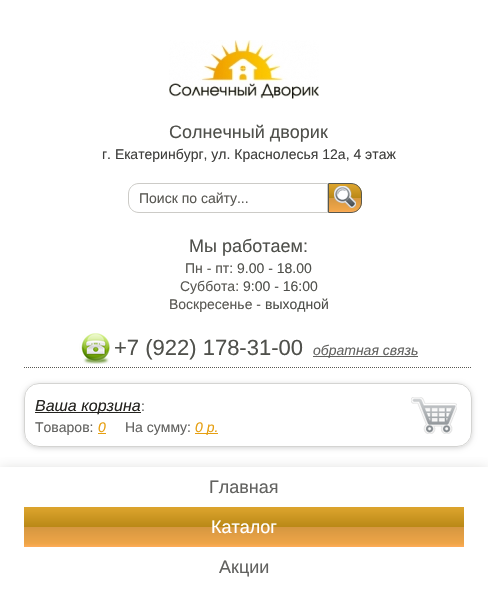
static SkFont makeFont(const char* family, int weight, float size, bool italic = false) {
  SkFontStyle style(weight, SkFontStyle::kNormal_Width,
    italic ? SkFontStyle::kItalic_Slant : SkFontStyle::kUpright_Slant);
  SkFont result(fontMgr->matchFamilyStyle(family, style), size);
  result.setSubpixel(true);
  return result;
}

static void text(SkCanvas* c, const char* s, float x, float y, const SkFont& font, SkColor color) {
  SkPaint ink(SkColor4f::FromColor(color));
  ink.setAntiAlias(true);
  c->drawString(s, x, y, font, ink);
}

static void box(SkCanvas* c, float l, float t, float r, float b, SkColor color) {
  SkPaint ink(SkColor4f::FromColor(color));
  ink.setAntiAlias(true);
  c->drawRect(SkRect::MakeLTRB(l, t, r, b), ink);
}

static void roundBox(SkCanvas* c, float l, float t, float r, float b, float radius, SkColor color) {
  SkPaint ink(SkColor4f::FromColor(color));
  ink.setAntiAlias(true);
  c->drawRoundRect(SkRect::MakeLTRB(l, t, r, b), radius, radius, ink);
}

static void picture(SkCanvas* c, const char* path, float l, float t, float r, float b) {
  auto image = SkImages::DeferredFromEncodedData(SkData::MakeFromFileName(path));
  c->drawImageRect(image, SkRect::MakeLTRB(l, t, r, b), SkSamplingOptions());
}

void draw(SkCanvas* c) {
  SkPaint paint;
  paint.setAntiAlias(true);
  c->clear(0xffffffff);
  picture(c, "img_01.png", 169, 40, 319, 99);
  SkFont face1 = makeFont("Liberation Sans", 400, 18);
  text(c, "Солнечный дворик", 169, 138, face1, 0xff4f504b);
  SkFont face2 = makeFont("Liberation Sans", 400, 14);
  text(c, "г. Екатеринбург, ул. Краснолесья 12а, 4 этаж", 102, 159, face2, 0xff3e3e3c);
  paint.setStyle(SkPaint::kStroke_Style);
  paint.setStrokeWidth(1);
  paint.setColor(0xffcccbc7);
  c->drawPath(SkPathBuilder().moveTo(139, 183.5f).lineTo(327.5f, 183.5f).lineTo(327.5f, 212.5f).lineTo(139, 212.5f).cubicTo(133, 212.5f, 128.5f, 208, 128.5f, 202).lineTo(128.5f, 194).cubicTo(128.5f, 188, 133, 183.5f, 139, 183.5f).close().detach(), paint);
  text(c, "Поиск по сайту...", 139, 203, face2, 0xff595853);
  c->save();
  c->clipPath(SkPathBuilder().moveTo(328, 183).lineTo(351, 183).cubicTo(357, 183, 362, 188, 362, 194).lineTo(362, 202).cubicTo(362, 208, 357, 213, 351, 213).lineTo(328, 213).close().detach(), true);
  paint.setStyle(SkPaint::kFill_Style);
  {
    const SkColor colors[] = {0xffdba32c, 0xffb98816, 0xffd59740, 0xffefa548, 0xffffac5a};
    const float stops[] = {0.04f, 0.5f, 0.5f, 0.92f, 1};
    const SkPoint ends[] = {{345, 184}, {345, 212}};
    paint.setShader(SkGradientShader::MakeLinear(ends, colors, stops, 5, SkTileMode::kClamp));
    paint.setAlpha(255);
  }
  c->drawRect(SkRect::MakeLTRB(329, 184, 362, 212), paint);
  c->restore();
  paint.setStyle(SkPaint::kStroke_Style);
  paint.setShader(nullptr);
  paint.setColor(0xff58584e);
  c->drawPath(SkPathBuilder().moveTo(328.5f, 183.5f).lineTo(351, 183.5f).cubicTo(357, 183.5f, 361.5f, 188, 361.5f, 194).lineTo(361.5f, 202).cubicTo(361.5f, 208, 357, 212.5f, 351, 212.5f).lineTo(328.5f, 212.5f).close().detach(), paint);
  picture(c, "img_02.png", 334, 186, 356, 208);
  text(c, "Мы работаем:", 189, 252, face1, 0xff4f504b);
  text(c, "Пн - пт:", 185, 273, face2, 0xff595853);
  text(c, "9.00 - 18.00", 237, 273, face2, 0xff4f504b);
  text(c, "Суббота:", 180, 291, face2, 0xff595853);
  text(c, "9:00 - 16:00", 243, 291, face2, 0xff4f504b);
  text(c, "Воскресенье -", 169, 309, face2, 0xff595853);
  text(c, "выходной", 265, 309, face2, 0xff4f504b);
  paint.setColor(0xff595853);
  paint.setPathEffect(SkDashPathEffect::Make({{1, 1}}, 0));
  c->drawPath(SkPathBuilder().moveTo(24, 367.5f).lineTo(472, 367.5f).detach(), paint);
  paint.setPathEffect(nullptr);
  picture(c, "img_03.png", 79, 333, 110, 364);
  SkFont face3 = makeFont("Liberation Sans", 400, 22);
  text(c, "+7 (922) 178-31-00", 114, 355, face3, 0xff4f504b);
  box(c, 313, 356, 418, 357, 0xff626260);
  SkFont face4 = makeFont("Liberation Sans", 400, 14, true);
  text(c, "обратная связь", 313, 355, face4, 0xff626260);
  paint.setStyle(SkPaint::kFill_Style);
  paint.setColor(0xffd3d3d3);
  paint.setMaskFilter(SkMaskFilter::MakeBlur(kNormal_SkBlurStyle, 2.5f));
  c->drawRoundRect(SkRect::MakeLTRB(24, 384, 472, 448), 15, 15, paint);
  paint.setMaskFilter(nullptr);
  roundBox(c, 24, 383, 472, 447, 15, 0xffffffff);
  picture(c, "img_04.png", 411, 397, 457, 434);
  paint.setStyle(SkPaint::kStroke_Style);
  paint.setColor(0xffd4d4d2);
  c->drawRoundRect(SkRect::MakeLTRB(24.5f, 383.5f, 471.5f, 446.5f), 14.5f, 14.5f, paint);
  box(c, 35, 412, 141, 413, 0xff24231f);
  SkFont face5 = makeFont("Liberation Sans", 400, 16, true);
  text(c, "Ваша корзина", 35, 411, face5, 0xff24231f);
  text(c, ":", 141, 411, face2, 0xff626260);
  text(c, "Товаров:", 35, 432, face2, 0xff626260);
  text(c, "0", 98, 432, face4, 0xffe69f11);
  box(c, 98, 433, 106, 434, 0xffe69f11);
  text(c, "На сумму:", 125, 432, face2, 0xff626260);
  box(c, 195, 433, 218, 434, 0xffe69f11);
  text(c, "0 р.", 195, 432, face4, 0xffe69f11);
  c->save();
  c->clipRect(SkRect::MakeLTRB(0, 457, 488, 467));
  paint.setStyle(SkPaint::kFill_Style);
  paint.setMaskFilter(SkMaskFilter::MakeBlur(kNormal_SkBlurStyle, 6.5f));
  c->drawRect(SkRect::MakeLTRB(0, 470, 488, 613), paint);
  paint.setMaskFilter(nullptr);
  c->restore();
  text(c, "Главная", 209, 493, face1, 0xff626260);
  {
    const SkColor colors[] = {0xffdba32c, 0xffb98816, 0xffd59740, 0xffefa548, 0xffffac5a};
    const float stops[] = {0.04f, 0.5f, 0.5f, 0.92f, 1};
    const SkPoint ends[] = {{244, 507}, {244, 547}};
    paint.setShader(SkGradientShader::MakeLinear(ends, colors, stops, 5, SkTileMode::kClamp));
    paint.setAlpha(255);
  }
  c->drawRect(SkRect::MakeLTRB(24, 507, 464, 547), paint);
  text(c, "Каталог", 211, 533, face1, 0xffffffff);
  text(c, "Акции", 219, 573, face1, 0xff626260);
}
